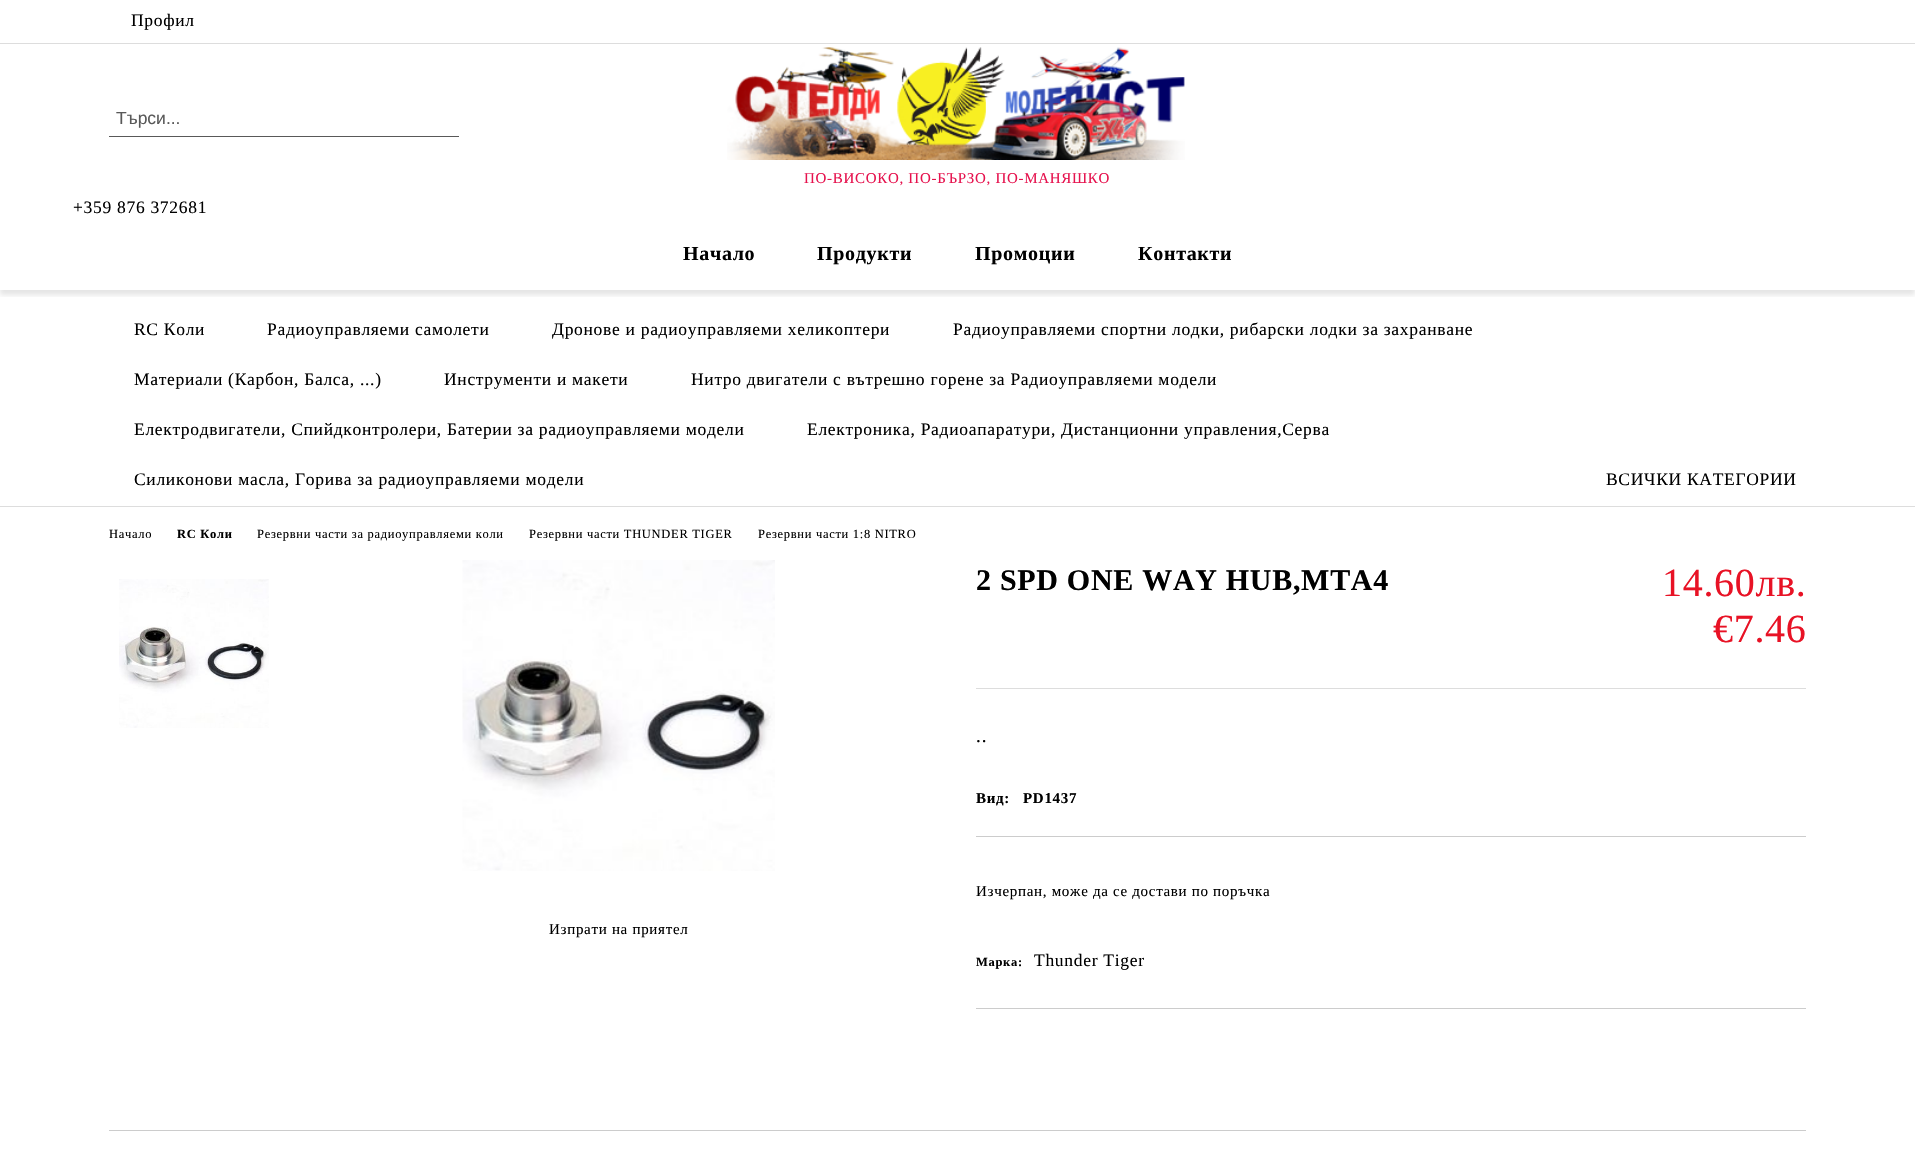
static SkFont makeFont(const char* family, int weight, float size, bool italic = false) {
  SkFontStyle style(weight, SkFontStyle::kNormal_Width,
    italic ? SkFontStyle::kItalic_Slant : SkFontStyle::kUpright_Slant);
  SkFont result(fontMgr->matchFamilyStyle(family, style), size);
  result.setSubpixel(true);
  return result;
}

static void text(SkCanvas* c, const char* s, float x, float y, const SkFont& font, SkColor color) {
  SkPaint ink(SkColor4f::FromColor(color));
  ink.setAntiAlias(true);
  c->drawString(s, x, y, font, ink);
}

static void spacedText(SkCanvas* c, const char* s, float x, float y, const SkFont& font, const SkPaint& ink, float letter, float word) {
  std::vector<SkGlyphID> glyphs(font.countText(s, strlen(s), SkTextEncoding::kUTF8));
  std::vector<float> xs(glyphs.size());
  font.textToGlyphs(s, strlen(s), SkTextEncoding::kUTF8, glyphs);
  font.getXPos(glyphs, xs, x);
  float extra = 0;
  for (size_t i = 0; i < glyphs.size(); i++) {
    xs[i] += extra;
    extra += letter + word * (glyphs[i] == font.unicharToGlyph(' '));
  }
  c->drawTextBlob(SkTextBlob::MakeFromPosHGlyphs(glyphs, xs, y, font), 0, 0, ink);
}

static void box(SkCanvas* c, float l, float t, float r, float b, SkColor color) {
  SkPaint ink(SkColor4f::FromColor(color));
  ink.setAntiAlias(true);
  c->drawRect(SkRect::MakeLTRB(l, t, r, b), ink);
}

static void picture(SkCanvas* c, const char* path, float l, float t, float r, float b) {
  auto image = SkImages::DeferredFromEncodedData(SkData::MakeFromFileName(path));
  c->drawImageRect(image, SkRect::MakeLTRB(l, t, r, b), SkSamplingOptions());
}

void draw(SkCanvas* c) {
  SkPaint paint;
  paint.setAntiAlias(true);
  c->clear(0xffffffff);
  box(c, 0, 43, 1915, 44, 0xffdddddd);
  SkFont face1 = makeFont("Liberation Serif", 400, 17.5f);
  paint.setColor(0xff000000);
  spacedText(c, "Профил", 131, 26, face1, paint, 0.7f, 0);
  box(c, 109, 136, 459, 137, 0xff595959);
  SkFont face2 = makeFont("Liberation Sans", 400, 17.5f);
  text(c, "Търси...", 116, 124, face2, 0xff595959);
  picture(c, "img_01.png", 727, 47, 1185, 160);
  SkFont face3 = makeFont("Liberation Serif", 400, 15);
  paint.setColor(0xffe6124e);
  spacedText(c, "ПО-ВИСОКО, ПО-БЪРЗО, ПО-МАНЯШКО", 804, 183, face3, paint, 0.7f, 0);
  c->save();
  c->clipRect(SkRect::MakeLTRB(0, 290, 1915, 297));
  paint.setColor(0x1a000000);
  paint.setMaskFilter(SkMaskFilter::MakeBlur(kNormal_SkBlurStyle, 2.5f));
  c->drawRect(SkRect::MakeLTRB(0, 199, 1915, 295), paint);
  paint.setMaskFilter(nullptr);
  c->restore();
  paint.setColor(0xff000000);
  spacedText(c, "+359 876 372681", 73, 213, face1, paint, 0.7f, 0);
  SkFont face4 = makeFont("Liberation Serif", 700, 20);
  spacedText(c, "Начало", 683, 260, face4, paint, 0.7f, 0);
  spacedText(c, "Продукти", 817, 260, face4, paint, 0.7f, 0);
  spacedText(c, "Промоции", 975, 260, face4, paint, 0.7f, 0);
  spacedText(c, "Контакти", 1138, 260, face4, paint, 0.7f, 0);
  box(c, 0, 506, 1915, 507, 0xffdddddd);
  spacedText(c, "RC Коли", 134, 335, face1, paint, 0.7f, 0);
  spacedText(c, "Радиоуправляеми самолети", 267, 335, face1, paint, 0.7f, 0);
  spacedText(c, "Дронове и радиоуправляеми хеликоптери", 552, 335, face1, paint, 0.7f, 0);
  spacedText(c, "Радиоуправляеми спортни лодки, рибарски лодки за захранване", 953, 335, face1, paint, 0.7f, 0);
  spacedText(c, "Материали (Карбон, Балса, ...)", 134, 385, face1, paint, 0.7f, 0);
  spacedText(c, "Инструменти и макети", 444, 385, face1, paint, 0.7f, 0);
  spacedText(c, "Нитро двигатели с вътрешно горене за Радиоуправляеми модели", 691, 385, face1, paint, 0.7f, 0);
  spacedText(c, "Електродвигатели, Спийдконтролери, Батерии за радиоуправляеми модели", 134, 435, face1, paint, 0.7f, 0);
  spacedText(c, "Електроника, Радиоапаратури, Дистанционни управления,Серва", 807, 435, face1, paint, 0.7f, 0);
  spacedText(c, "Силиконови масла, Горива за радиоуправляеми модели", 134, 485, face1, paint, 0.7f, 0);
  spacedText(c, "ВСИЧКИ КАТЕГОРИИ", 1606, 485, face1, paint, 0.7f, 0);
  SkFont face5 = makeFont("Liberation Serif", 400, 12.5f);
  spacedText(c, "Начало", 109, 538, face5, paint, 0.7f, 0);
  SkFont face6 = makeFont("Liberation Serif", 700, 12.5f);
  spacedText(c, "RC Коли", 177, 538, face6, paint, 0.7f, 0);
  spacedText(c, "Резервни части за радиоуправляеми коли", 257, 538, face5, paint, 0.7f, 0);
  spacedText(c, "Резервни части THUNDER TIGER", 529, 538, face5, paint, 0.7f, 0);
  spacedText(c, "Резервни части 1:8 NITRO", 758, 538, face5, paint, 0.7f, 0);
  picture(c, "img_02.png", 119, 579, 269, 728);
  picture(c, "img_03.png", 462, 560, 775, 871);
  spacedText(c, "Изпрати на приятел", 549, 934, face3, paint, 0.7f, 0);
  SkFont face7 = makeFont("Liberation Serif", 700, 30);
  spacedText(c, "2 SPD ONE WAY HUB,MTA4", 976, 590, face7, paint, 0.7f, 0);
  SkFont face8 = makeFont("Liberation Serif", 400, 40);
  paint.setColor(0xffe81225);
  spacedText(c, "14.60лв.", 1662, 596, face8, paint, 0.7f, 0);
  spacedText(c, "€7.46", 1713, 642, face8, paint, 0.7f, 0);
  box(c, 976, 688, 1806, 689, 0xffdddddd);
  SkFont face9 = makeFont("Liberation Serif", 400, 19);
  paint.setColor(0xff000000);
  spacedText(c, "..", 976, 742, face9, paint, 1, 0);
  SkFont face10 = makeFont("Liberation Serif", 700, 15);
  spacedText(c, "Вид:", 976, 803, face10, paint, 0.7f, 0);
  spacedText(c, "PD1437", 1023, 803, face10, paint, 0.7f, 0);
  box(c, 976, 836, 1806, 837, 0xffcccccc);
  spacedText(c, "Изчерпан, може да се достави по поръчка", 976, 896, face3, paint, 0.7f, 0);
  spacedText(c, "Марка:", 976, 966, face6, paint, 0.7f, 0);
  spacedText(c, "Thunder Tiger", 1034, 966, face1, paint, 0.7f, 0);
  box(c, 976, 1008, 1806, 1009, 0xffcccccc);
  box(c, 109, 1130, 1806, 1131, 0xffcccccc);
}
